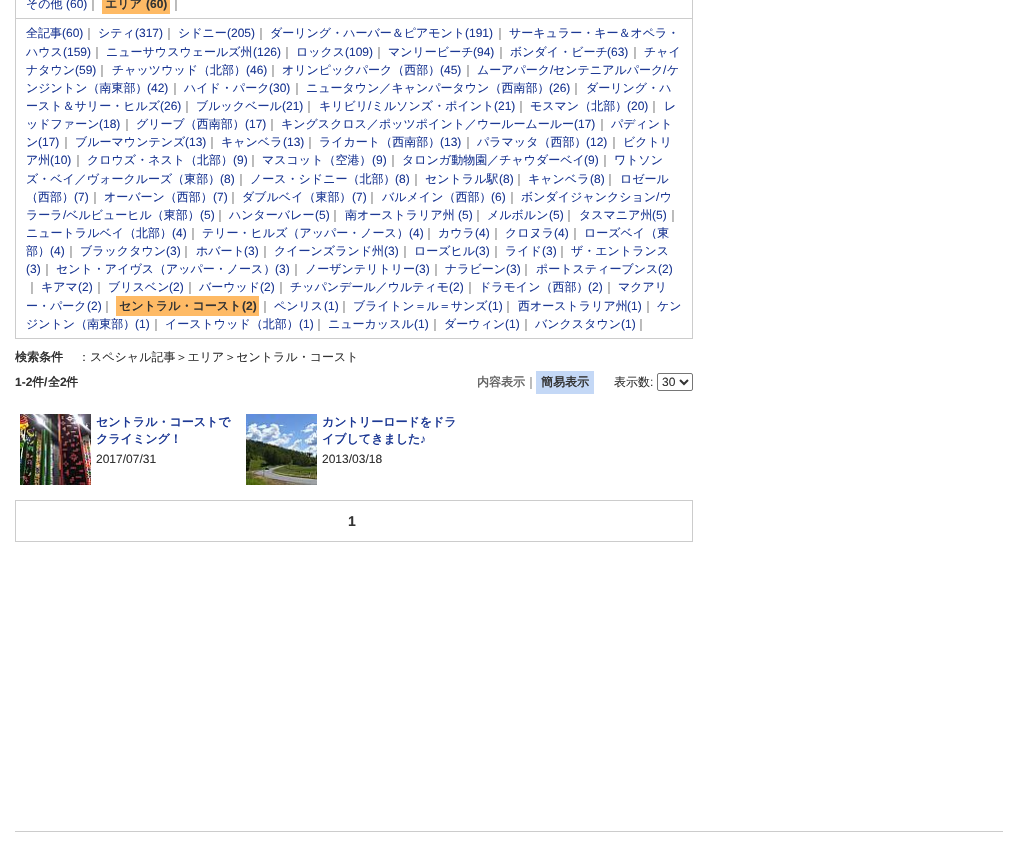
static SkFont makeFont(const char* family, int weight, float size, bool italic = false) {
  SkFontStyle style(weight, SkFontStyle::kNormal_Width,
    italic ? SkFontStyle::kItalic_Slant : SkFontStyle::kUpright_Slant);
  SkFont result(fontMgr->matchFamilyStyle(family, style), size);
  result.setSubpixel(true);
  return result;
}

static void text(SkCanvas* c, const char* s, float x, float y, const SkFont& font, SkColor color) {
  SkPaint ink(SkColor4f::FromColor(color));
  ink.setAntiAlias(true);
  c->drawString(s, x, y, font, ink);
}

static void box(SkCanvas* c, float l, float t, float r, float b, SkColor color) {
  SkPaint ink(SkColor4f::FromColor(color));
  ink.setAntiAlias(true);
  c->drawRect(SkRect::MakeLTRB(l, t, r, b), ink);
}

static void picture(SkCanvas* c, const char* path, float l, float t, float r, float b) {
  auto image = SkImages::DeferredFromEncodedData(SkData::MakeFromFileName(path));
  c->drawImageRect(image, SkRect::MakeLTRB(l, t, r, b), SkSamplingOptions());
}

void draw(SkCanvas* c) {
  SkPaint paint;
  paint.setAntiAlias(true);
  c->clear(0xffffffff);
  box(c, 692, 0, 693, 339, 0xffcccccc);
  box(c, 15, 0, 16, 339, 0xffcccccc);
  box(c, 16, 18, 693, 19, 0xffcccccc);
  SkFont face1 = makeFont("WenQuanYi Zen Hei", 500, 12);
  text(c, "その他", 26, 8, face1, 0xff1d3994);
  SkFont face2 = makeFont("Liberation Sans", 400, 12);
  text(c, "(60)", 66, 8, face2, 0xff1d3994);
  text(c, "｜", 87, 8, face1, 0xff666666);
  box(c, 102, 0, 170, 14, 0xfffeba65);
  SkFont face3 = makeFont("WenQuanYi Zen Hei", 700, 12);
  text(c, "エリア", 105, 8, face3, 0xff333333);
  SkFont face4 = makeFont("Liberation Sans", 700, 12);
  text(c, "(60)", 146, 8, face4, 0xff333333);
  text(c, "｜", 170, 8, face1, 0xff666666);
  box(c, 16, 338, 693, 339, 0xffcccccc);
  text(c, "全記事", 26, 37, face1, 0xff1d3994);
  text(c, "(60)", 62, 37, face2, 0xff1d3994);
  text(c, "｜", 83, 37, face1, 0xff666666);
  text(c, "シティ", 98, 37, face1, 0xff1d3994);
  text(c, "(317)", 135, 37, face2, 0xff1d3994);
  text(c, "｜", 163, 37, face1, 0xff666666);
  text(c, "シドニー", 178, 37, face1, 0xff1d3994);
  text(c, "(205)", 227, 37, face2, 0xff1d3994);
  text(c, "｜", 255, 37, face1, 0xff666666);
  text(c, "ダーリング・ハーバー＆ピアモント", 270, 37, face1, 0xff1d3994);
  text(c, "(191)", 465, 37, face2, 0xff1d3994);
  text(c, "｜", 494, 37, face1, 0xff666666);
  text(c, "サーキュラー・キー＆オペラ・", 509, 37, face1, 0xff1d3994);
  text(c, "ハウス", 26, 56, face1, 0xff1d3994);
  text(c, "(159)", 63, 56, face2, 0xff1d3994);
  text(c, "｜", 91, 56, face1, 0xff666666);
  text(c, "ニューサウスウェールズ州", 106, 56, face1, 0xff1d3994);
  text(c, "(126)", 253, 56, face2, 0xff1d3994);
  text(c, "｜", 281, 56, face1, 0xff666666);
  text(c, "ロックス", 296, 56, face1, 0xff1d3994);
  text(c, "(109)", 345, 56, face2, 0xff1d3994);
  text(c, "｜", 373, 56, face1, 0xff666666);
  text(c, "マンリービーチ", 388, 56, face1, 0xff1d3994);
  text(c, "(94)", 473, 56, face2, 0xff1d3994);
  text(c, "｜", 495, 56, face1, 0xff666666);
  text(c, "ボンダイ・ビーチ", 510, 56, face1, 0xff1d3994);
  text(c, "(63)", 607, 56, face2, 0xff1d3994);
  text(c, "｜", 629, 56, face1, 0xff666666);
  text(c, "チャイ", 644, 56, face1, 0xff1d3994);
  text(c, "ナタウン", 26, 74, face1, 0xff1d3994);
  text(c, "(59)", 75, 74, face2, 0xff1d3994);
  text(c, "｜", 96, 74, face1, 0xff666666);
  text(c, "チャッツウッド（北部）", 112, 74, face1, 0xff1d3994);
  text(c, "(46)", 246, 74, face2, 0xff1d3994);
  text(c, "｜", 267, 74, face1, 0xff666666);
  text(c, "オリンピックパーク（西部）", 282, 74, face1, 0xff1d3994);
  text(c, "(45)", 440, 74, face2, 0xff1d3994);
  text(c, "｜", 462, 74, face1, 0xff666666);
  text(c, "ムーアパーク", 477, 74, face1, 0xff1d3994);
  text(c, "/", 550, 74, face2, 0xff1d3994);
  text(c, "センテニアルパーク", 553, 74, face1, 0xff1d3994);
  text(c, "/", 663, 74, face2, 0xff1d3994);
  text(c, "ケ", 667, 74, face1, 0xff1d3994);
  text(c, "ンジントン（南東部）", 26, 92, face1, 0xff1d3994);
  text(c, "(42)", 147, 92, face2, 0xff1d3994);
  text(c, "｜", 169, 92, face1, 0xff666666);
  text(c, "ハイド・パーク", 184, 92, face1, 0xff1d3994);
  text(c, "(30)", 269, 92, face2, 0xff1d3994);
  text(c, "｜", 291, 92, face1, 0xff666666);
  text(c, "ニュータウン／キャンパータウン（西南部）", 306, 92, face1, 0xff1d3994);
  text(c, "(26)", 549, 92, face2, 0xff1d3994);
  text(c, "｜", 570, 92, face1, 0xff666666);
  text(c, "ダーリング・ハ", 586, 92, face1, 0xff1d3994);
  text(c, "ースト＆サリー・ヒルズ", 26, 110, face1, 0xff1d3994);
  text(c, "(26)", 160, 110, face2, 0xff1d3994);
  text(c, "｜", 181, 110, face1, 0xff666666);
  text(c, "ブルックベール", 196, 110, face1, 0xff1d3994);
  text(c, "(21)", 282, 110, face2, 0xff1d3994);
  text(c, "｜", 303, 110, face1, 0xff666666);
  text(c, "キリビリ ミルソンズ・ポイント", 319, 110, face1, 0xff1d3994);
  text(c, "モスマン（北部）", 530, 110, face1, 0xff1d3994);
  text(c, "/", 368, 110, face2, 0xff1d3994);
  text(c, "(21)", 494, 110, face2, 0xff1d3994);
  text(c, "｜", 515, 110, face1, 0xff666666);
  text(c, "(20)", 627, 110, face2, 0xff1d3994);
  text(c, "｜", 648, 110, face1, 0xff666666);
  text(c, "レ", 664, 110, face1, 0xff1d3994);
  text(c, "ッドファーン", 26, 128, face1, 0xff1d3994);
  text(c, "(18)", 99, 128, face2, 0xff1d3994);
  text(c, "｜", 121, 128, face1, 0xff666666);
  text(c, "グリーブ（西南部）", 136, 128, face1, 0xff1d3994);
  text(c, "(17)", 245, 128, face2, 0xff1d3994);
  text(c, "｜", 266, 128, face1, 0xff666666);
  text(c, "キングスクロス／ポッツポイント／ウールームールー", 281, 128, face1, 0xff1d3994);
  text(c, "(17)", 574, 128, face2, 0xff1d3994);
  text(c, "｜", 596, 128, face1, 0xff666666);
  text(c, "パディント", 611, 128, face1, 0xff1d3994);
  text(c, "ン", 26, 146, face1, 0xff1d3994);
  text(c, "(17)", 38, 146, face2, 0xff1d3994);
  text(c, "｜", 60, 146, face1, 0xff666666);
  text(c, "ブルーマウンテンズ", 75, 146, face1, 0xff1d3994);
  text(c, "(13)", 185, 146, face2, 0xff1d3994);
  text(c, "｜", 206, 146, face1, 0xff666666);
  text(c, "キャンベラ", 221, 146, face1, 0xff1d3994);
  text(c, "(13)", 283, 146, face2, 0xff1d3994);
  text(c, "｜", 304, 146, face1, 0xff666666);
  text(c, "ライカート（西南部）", 319, 146, face1, 0xff1d3994);
  text(c, "(13)", 440, 146, face2, 0xff1d3994);
  text(c, "｜", 462, 146, face1, 0xff666666);
  text(c, "パラマッタ（西部）", 477, 146, face1, 0xff1d3994);
  text(c, "(12)", 586, 146, face2, 0xff1d3994);
  text(c, "｜", 608, 146, face1, 0xff666666);
  text(c, "ビクトリ", 623, 146, face1, 0xff1d3994);
  text(c, "ア州", 26, 164, face1, 0xff1d3994);
  text(c, "(10)", 50, 164, face2, 0xff1d3994);
  text(c, "｜", 72, 164, face1, 0xff666666);
  text(c, "クロウズ・ネスト（北部）", 87, 164, face1, 0xff1d3994);
  text(c, "(9)", 233, 164, face2, 0xff1d3994);
  text(c, "｜", 247, 164, face1, 0xff666666);
  text(c, "マスコット（空港）", 262, 164, face1, 0xff1d3994);
  text(c, "(9)", 372, 164, face2, 0xff1d3994);
  text(c, "｜", 387, 164, face1, 0xff666666);
  text(c, "タロンガ動物園／チャウダーベイ", 402, 164, face1, 0xff1d3994);
  text(c, "(9)", 584, 164, face2, 0xff1d3994);
  text(c, "｜", 599, 164, face1, 0xff666666);
  text(c, "ワトソン", 614, 164, face1, 0xff1d3994);
  text(c, "ズ・ベイ／ヴォークルーズ（東部）", 26, 183, face1, 0xff1d3994);
  text(c, "(8)", 220, 183, face2, 0xff1d3994);
  text(c, "｜", 235, 183, face1, 0xff666666);
  text(c, "ノース・シドニー（北部）", 250, 183, face1, 0xff1d3994);
  text(c, "(8)", 395, 183, face2, 0xff1d3994);
  text(c, "｜", 410, 183, face1, 0xff666666);
  text(c, "セントラル駅", 425, 183, face1, 0xff1d3994);
  text(c, "(8)", 499, 183, face2, 0xff1d3994);
  text(c, "｜", 513, 183, face1, 0xff666666);
  text(c, "キャンベラ", 528, 183, face1, 0xff1d3994);
  text(c, "(8)", 590, 183, face2, 0xff1d3994);
  text(c, "｜", 604, 183, face1, 0xff666666);
  text(c, "ロゼール", 620, 183, face1, 0xff1d3994);
  text(c, "（西部）", 26, 201, face1, 0xff1d3994);
  text(c, "(7)", 74, 201, face2, 0xff1d3994);
  text(c, "｜", 89, 201, face1, 0xff666666);
  text(c, "オーバーン（西部）", 104, 201, face1, 0xff1d3994);
  text(c, "(7)", 213, 201, face2, 0xff1d3994);
  text(c, "｜", 227, 201, face1, 0xff666666);
  text(c, "ダブルベイ（東部）", 242, 201, face1, 0xff1d3994);
  text(c, "(7)", 352, 201, face2, 0xff1d3994);
  text(c, "｜", 366, 201, face1, 0xff666666);
  text(c, "バルメイン（西部）", 382, 201, face1, 0xff1d3994);
  text(c, "(6)", 491, 201, face2, 0xff1d3994);
  text(c, "｜", 506, 201, face1, 0xff666666);
  text(c, "ボンダイジャンクション ウ", 521, 201, face1, 0xff1d3994);
  text(c, "/", 656, 201, face2, 0xff1d3994);
  text(c, "ラーラ ベルビューヒル（東部）", 26, 219, face1, 0xff1d3994);
  text(c, "南オーストラリア州", 345, 219, face1, 0xff1d3994);
  text(c, "メルボルン", 487, 219, face1, 0xff1d3994);
  text(c, "タスマニア州", 579, 219, face1, 0xff1d3994);
  text(c, "/", 63, 219, face2, 0xff1d3994);
  text(c, "(5)", 200, 219, face2, 0xff1d3994);
  text(c, "｜", 214, 219, face1, 0xff666666);
  text(c, "ハンターバレー", 229, 219, face1, 0xff1d3994);
  text(c, "(5)", 315, 219, face2, 0xff1d3994);
  text(c, "｜", 329, 219, face1, 0xff666666);
  text(c, "(5)", 458, 219, face2, 0xff1d3994);
  text(c, "｜", 472, 219, face1, 0xff666666);
  text(c, "(5)", 549, 219, face2, 0xff1d3994);
  text(c, "｜", 563, 219, face1, 0xff666666);
  text(c, "(5)", 652, 219, face2, 0xff1d3994);
  text(c, "｜", 667, 219, face1, 0xff666666);
  text(c, "ニュートラルベイ（北部）", 26, 237, face1, 0xff1d3994);
  text(c, "(4)", 172, 237, face2, 0xff1d3994);
  text(c, "｜", 187, 237, face1, 0xff666666);
  text(c, "テリー・ヒルズ（アッパー・ノース）", 202, 237, face1, 0xff1d3994);
  text(c, "(4)", 409, 237, face2, 0xff1d3994);
  text(c, "｜", 423, 237, face1, 0xff666666);
  text(c, "カウラ", 438, 237, face1, 0xff1d3994);
  text(c, "(4)", 475, 237, face2, 0xff1d3994);
  text(c, "｜", 490, 237, face1, 0xff666666);
  text(c, "クロヌラ", 505, 237, face1, 0xff1d3994);
  text(c, "(4)", 554, 237, face2, 0xff1d3994);
  text(c, "｜", 569, 237, face1, 0xff666666);
  text(c, "ローズベイ（東", 584, 237, face1, 0xff1d3994);
  text(c, "部）", 26, 255, face1, 0xff1d3994);
  text(c, "(4)", 50, 255, face2, 0xff1d3994);
  text(c, "｜", 65, 255, face1, 0xff666666);
  text(c, "ブラックタウン", 80, 255, face1, 0xff1d3994);
  text(c, "(3)", 166, 255, face2, 0xff1d3994);
  text(c, "｜", 180, 255, face1, 0xff666666);
  text(c, "ホバート", 196, 255, face1, 0xff1d3994);
  text(c, "(3)", 244, 255, face2, 0xff1d3994);
  text(c, "｜", 259, 255, face1, 0xff666666);
  text(c, "クイーンズランド州", 274, 255, face1, 0xff1d3994);
  text(c, "(3)", 384, 255, face2, 0xff1d3994);
  text(c, "｜", 399, 255, face1, 0xff666666);
  text(c, "ローズヒル", 414, 255, face1, 0xff1d3994);
  text(c, "(3)", 475, 255, face2, 0xff1d3994);
  text(c, "｜", 490, 255, face1, 0xff666666);
  text(c, "ライド", 505, 255, face1, 0xff1d3994);
  text(c, "(3)", 542, 255, face2, 0xff1d3994);
  text(c, "｜", 556, 255, face1, 0xff666666);
  text(c, "ザ・エントランス", 571, 255, face1, 0xff1d3994);
  text(c, "(3)", 26, 273, face2, 0xff1d3994);
  text(c, "｜", 41, 273, face1, 0xff666666);
  text(c, "セント・アイヴス（アッパー・ノース）", 56, 273, face1, 0xff1d3994);
  text(c, "(3)", 275, 273, face2, 0xff1d3994);
  text(c, "｜", 290, 273, face1, 0xff666666);
  text(c, "ノーザンテリトリー", 305, 273, face1, 0xff1d3994);
  text(c, "(3)", 415, 273, face2, 0xff1d3994);
  text(c, "｜", 430, 273, face1, 0xff666666);
  text(c, "ナラビーン", 445, 273, face1, 0xff1d3994);
  text(c, "(3)", 506, 273, face2, 0xff1d3994);
  text(c, "｜", 520, 273, face1, 0xff666666);
  text(c, "ポートスティーブンス", 536, 273, face1, 0xff1d3994);
  text(c, "(2)", 658, 273, face2, 0xff1d3994);
  text(c, "｜", 26, 291, face1, 0xff666666);
  text(c, "キアマ", 41, 291, face1, 0xff1d3994);
  text(c, "(2)", 78, 291, face2, 0xff1d3994);
  text(c, "｜", 93, 291, face1, 0xff666666);
  text(c, "ブリスベン", 108, 291, face1, 0xff1d3994);
  text(c, "(2)", 169, 291, face2, 0xff1d3994);
  text(c, "｜", 184, 291, face1, 0xff666666);
  text(c, "バーウッド", 199, 291, face1, 0xff1d3994);
  text(c, "(2)", 260, 291, face2, 0xff1d3994);
  text(c, "｜", 275, 291, face1, 0xff666666);
  text(c, "チッパンデール／ウルティモ", 290, 291, face1, 0xff1d3994);
  text(c, "(2)", 449, 291, face2, 0xff1d3994);
  text(c, "｜", 464, 291, face1, 0xff666666);
  text(c, "ドラモイン（西部）", 479, 291, face1, 0xff1d3994);
  text(c, "(2)", 588, 291, face2, 0xff1d3994);
  text(c, "｜", 603, 291, face1, 0xff666666);
  text(c, "マクアリ", 618, 291, face1, 0xff1d3994);
  text(c, "ー・パーク", 26, 310, face1, 0xff1d3994);
  text(c, "(2)", 87, 310, face2, 0xff1d3994);
  text(c, "｜", 101, 310, face1, 0xff666666);
  box(c, 116, 296, 259, 316, 0xfffeba65);
  text(c, "セントラル・コースト", 119, 310, face3, 0xff333333);
  text(c, "(2)", 242, 310, face4, 0xff333333);
  text(c, "｜", 259, 310, face1, 0xff666666);
  text(c, "ペンリス", 274, 310, face1, 0xff1d3994);
  text(c, "(1)", 324, 310, face2, 0xff1d3994);
  text(c, "｜", 338, 310, face1, 0xff666666);
  text(c, "ブライトン＝ル＝サンズ", 353, 310, face1, 0xff1d3994);
  text(c, "(1)", 488, 310, face2, 0xff1d3994);
  text(c, "｜", 502, 310, face1, 0xff666666);
  text(c, "西オーストラリア州", 518, 310, face1, 0xff1d3994);
  text(c, "(1)", 627, 310, face2, 0xff1d3994);
  text(c, "｜", 642, 310, face1, 0xff666666);
  text(c, "ケン", 657, 310, face1, 0xff1d3994);
  text(c, "ジントン（南東部）", 26, 328, face1, 0xff1d3994);
  text(c, "(1)", 135, 328, face2, 0xff1d3994);
  text(c, "｜", 150, 328, face1, 0xff666666);
  text(c, "イーストウッド（北部）", 165, 328, face1, 0xff1d3994);
  text(c, "(1)", 299, 328, face2, 0xff1d3994);
  text(c, "｜", 313, 328, face1, 0xff666666);
  text(c, "ニューカッスル", 328, 328, face1, 0xff1d3994);
  text(c, "(1)", 414, 328, face2, 0xff1d3994);
  text(c, "｜", 429, 328, face1, 0xff666666);
  text(c, "ダーウィン", 444, 328, face1, 0xff1d3994);
  text(c, "(1)", 505, 328, face2, 0xff1d3994);
  text(c, "｜", 520, 328, face1, 0xff666666);
  text(c, "バンクスタウン", 535, 328, face1, 0xff1d3994);
  text(c, "(1)", 621, 328, face2, 0xff1d3994);
  text(c, "｜", 635, 328, face1, 0xff666666);
  text(c, "検索条件", 15, 361, face3, 0xff333333);
  text(c, "：スペシャル記事＞エリア＞セントラル・コースト", 78, 361, face1, 0xff333333);
  text(c, "1-2", 15, 386, face4, 0xff333333);
  text(c, "件", 32, 386, face3, 0xff333333);
  text(c, "/", 44, 386, face4, 0xff333333);
  text(c, "全", 48, 386, face3, 0xff333333);
  text(c, "2", 60, 386, face4, 0xff333333);
  text(c, "件", 66, 386, face3, 0xff333333);
  text(c, "内容表示", 477, 386, face3, 0xff666666);
  text(c, "｜", 525, 386, face1, 0xff666666);
  box(c, 536, 371, 594, 394, 0xffc4d8f6);
  text(c, "簡易表示", 541, 386, face3, 0xff333333);
  text(c, "表示数", 614, 386, face1, 0xff333333);
  text(c, ":", 650, 386, face2, 0xff333333);
  paint.setStyle(SkPaint::kStroke_Style);
  paint.setStrokeWidth(1);
  paint.setColor(0xff767676);
  c->drawRoundRect(SkRect::MakeLTRB(657.5f, 373.5f, 692.5f, 390.5f), 1.5f, 1.5f, paint);
  paint.setStrokeWidth(2);
  paint.setColor(0xff333333);
  c->drawPath(SkPathBuilder().moveTo(680, 380).lineTo(684, 384).lineTo(688, 380).detach(), paint);
  text(c, "30", 662, 386, face2, 0xff333333);
  picture(c, "img_01.png", 20, 414, 91, 485);
  text(c, "セントラル・コーストで", 96, 426, face3, 0xff1d3994);
  text(c, "クライミング！", 96, 443, face3, 0xff1d3994);
  text(c, "2017/07/31", 96, 463, face2, 0xff333333);
  picture(c, "img_02.png", 246, 414, 317, 485);
  text(c, "カントリーロードをドラ", 322, 426, face3, 0xff1d3994);
  text(c, "イブしてきました", 322, 443, face3, 0xff1d3994);
  text(c, "♪", 420, 443, face4, 0xff1d3994);
  text(c, "2013/03/18", 322, 463, face2, 0xff333333);
  paint.setStrokeWidth(1);
  paint.setColor(0xffcccccc);
  c->drawRect(SkRect::MakeLTRB(15.5f, 500.5f, 692.5f, 541.5f), paint);
  SkFont face5 = makeFont("Liberation Sans", 700, 14);
  text(c, "1", 348, 526, face5, 0xff333333);
  box(c, 15, 831, 1003, 832, 0xffcccccc);
}
